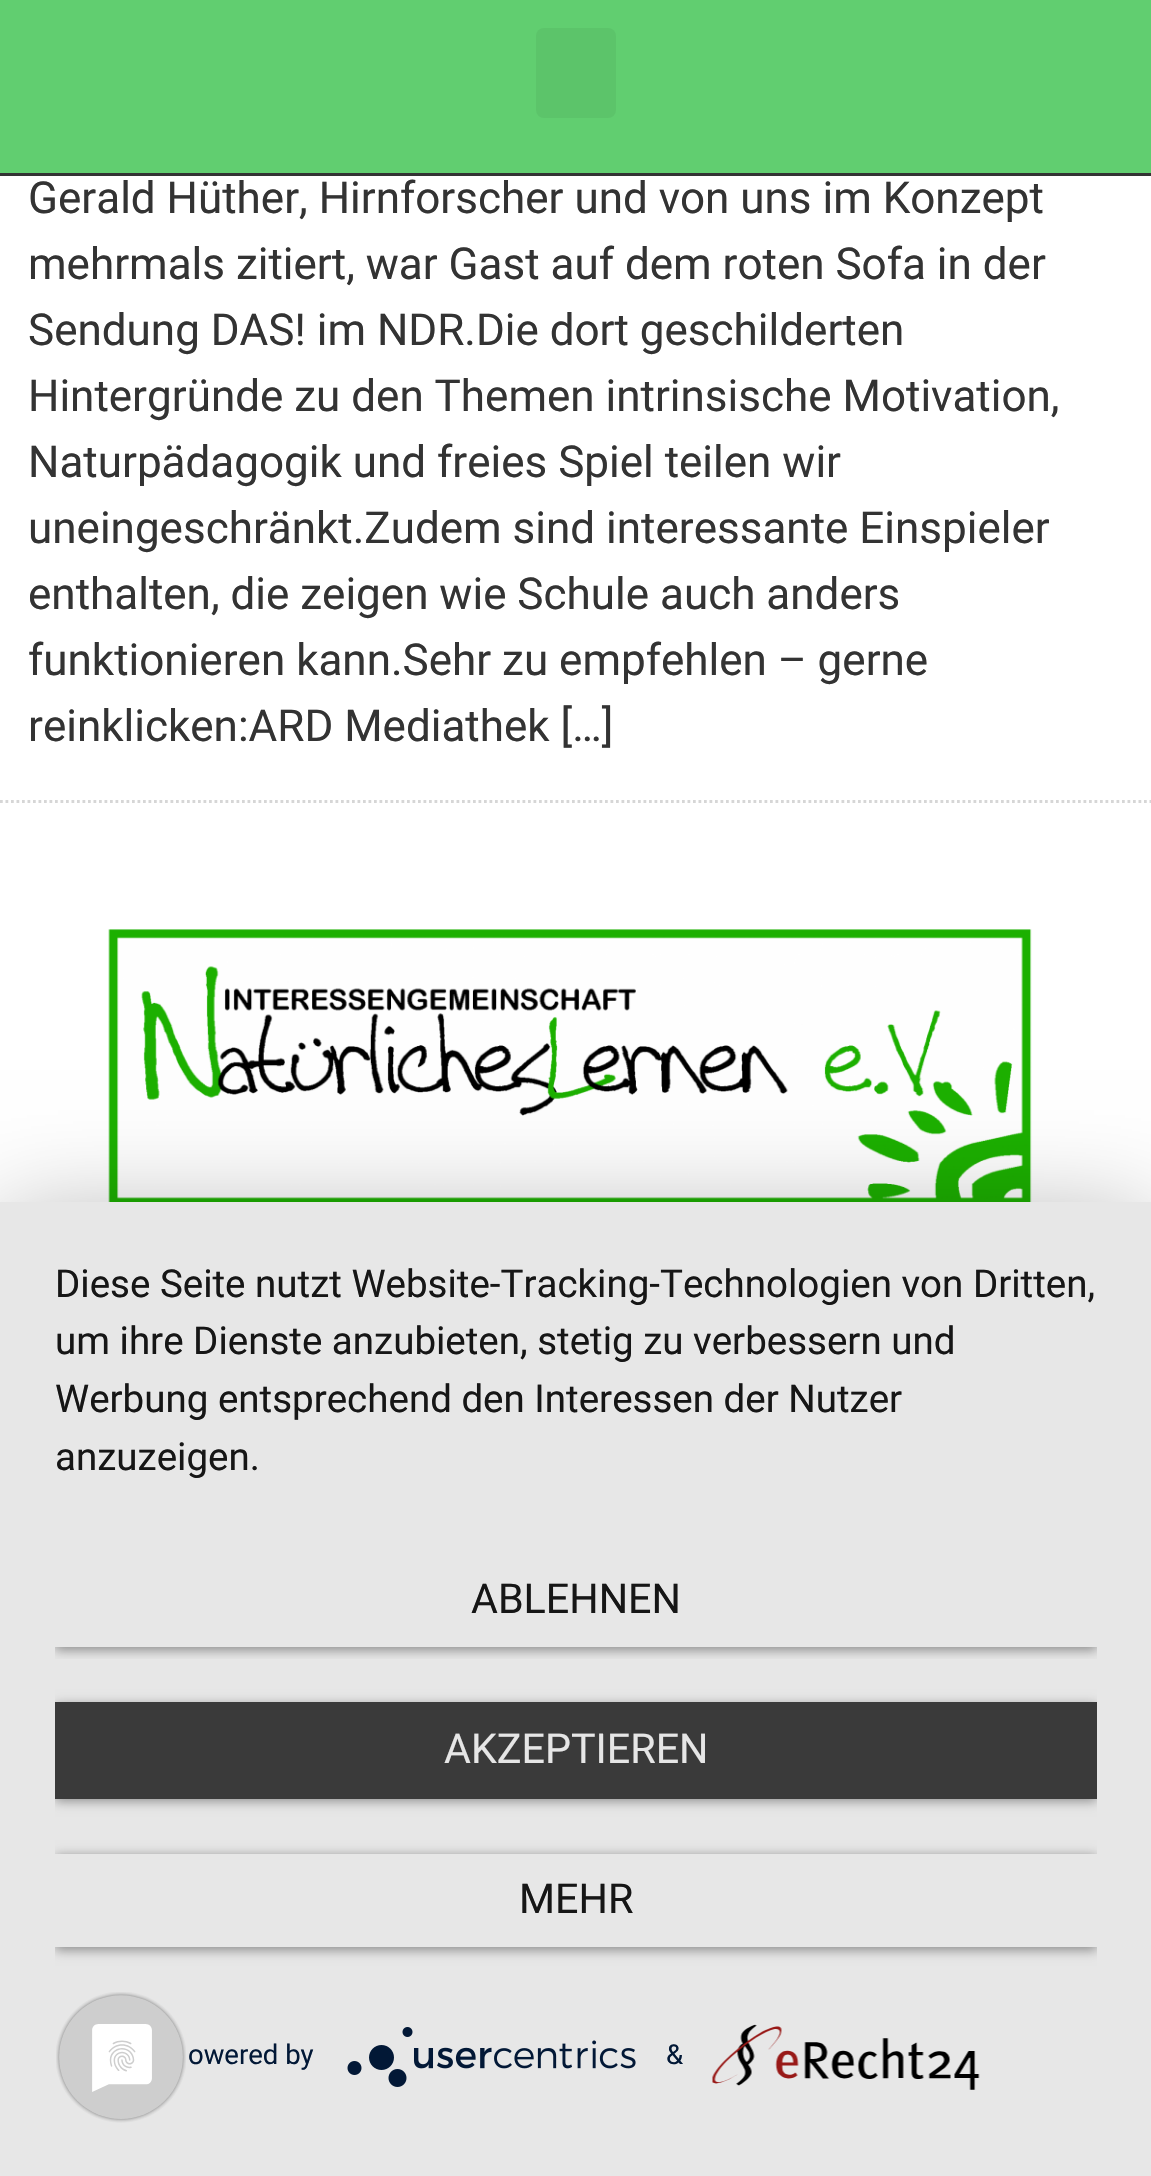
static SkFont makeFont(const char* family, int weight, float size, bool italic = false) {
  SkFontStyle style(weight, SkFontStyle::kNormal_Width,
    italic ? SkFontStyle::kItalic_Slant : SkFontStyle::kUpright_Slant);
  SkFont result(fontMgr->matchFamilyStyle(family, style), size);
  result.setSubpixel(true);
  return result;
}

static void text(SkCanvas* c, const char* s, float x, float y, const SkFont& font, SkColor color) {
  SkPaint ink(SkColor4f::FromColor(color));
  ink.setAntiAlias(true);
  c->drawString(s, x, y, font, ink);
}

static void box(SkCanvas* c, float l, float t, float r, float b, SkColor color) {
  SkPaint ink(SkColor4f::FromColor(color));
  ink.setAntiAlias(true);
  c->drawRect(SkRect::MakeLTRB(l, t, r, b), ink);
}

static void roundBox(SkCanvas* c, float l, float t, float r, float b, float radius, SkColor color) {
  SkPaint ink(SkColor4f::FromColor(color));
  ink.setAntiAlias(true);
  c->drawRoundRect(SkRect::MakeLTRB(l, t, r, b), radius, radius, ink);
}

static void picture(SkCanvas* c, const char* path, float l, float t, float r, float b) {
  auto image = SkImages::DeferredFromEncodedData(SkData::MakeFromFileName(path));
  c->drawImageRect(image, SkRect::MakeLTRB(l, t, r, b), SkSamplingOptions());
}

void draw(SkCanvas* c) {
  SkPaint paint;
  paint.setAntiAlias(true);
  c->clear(0xffffffff);
  box(c, 0, 0, 1151, 173, 0xff61ce70);
  box(c, 0, 173, 1151, 176, 0xff333333);
  roundBox(c, 536, 28, 616, 118, 8, 0xff5cc46a);
  SkFont face1 = makeFont("Roboto", 400, 44);
  text(c, "Gerald Hüther, Hirnforscher und von uns im Konzept", 28, 213, face1, 0xff333333);
  text(c, "mehrmals zitiert, war Gast auf dem roten Sofa in der", 28, 279, face1, 0xff333333);
  text(c, "Sendung DAS! im NDR.Die dort geschilderten", 28, 345, face1, 0xff333333);
  text(c, "Hintergründe zu den Themen intrinsische Motivation,", 28, 411, face1, 0xff333333);
  text(c, "Naturpädagogik und freies Spiel teilen wir", 28, 477, face1, 0xff333333);
  text(c, "uneingeschränkt.Zudem sind interessante Einspieler", 28, 543, face1, 0xff333333);
  text(c, "enthalten, die zeigen wie Schule auch anders", 28, 609, face1, 0xff333333);
  text(c, "funktionieren kann.Sehr zu empfehlen – gerne", 28, 675, face1, 0xff333333);
  text(c, "reinklicken:ARD Mediathek […]", 28, 741, face1, 0xff333333);
  paint.setStyle(SkPaint::kStroke_Style);
  paint.setStrokeWidth(2.8f);
  paint.setColor(0xffd6d6d6);
  paint.setPathEffect(SkDashPathEffect::Make({{2.75f, 2.75f}}, 0));
  c->drawPath(SkPathBuilder().moveTo(0, 801.5f).lineTo(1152, 801.5f).detach(), paint);
  paint.setPathEffect(nullptr);
  picture(c, "img_01.png", 108, 929, 1032, 1202);
  paint.setStyle(SkPaint::kFill_Style);
  paint.setColor(0x4d000000);
  paint.setMaskFilter(SkMaskFilter::MakeBlur(kNormal_SkBlurStyle, 49.5f));
  c->drawRect(SkRect::MakeLTRB(0, 1218, 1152, 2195), paint);
  paint.setMaskFilter(nullptr);
  box(c, 0, 1202, 1151, 2176, 0xffe7e7e7);
  SkFont face2 = makeFont("Roboto", 400, 38.5f);
  text(c, "Diese Seite nutzt Website-Tracking-Technologien von Dritten,", 55, 1297, face2, 0xff161616);
  text(c, "um ihre Dienste anzubieten, stetig zu verbessern und", 55, 1354, face2, 0xff161616);
  text(c, "Werbung entsprechend den Interessen der Nutzer", 55, 1412, face2, 0xff161616);
  text(c, "anzuzeigen.", 55, 1470, face2, 0xff161616);
  c->save();
  c->clipRect(SkRect::MakeLTRB(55, 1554, 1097, 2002));
  c->clipRect(SkRect::MakeLTRB(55, 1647, 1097, 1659));
  paint.setColor(0x66000000);
  paint.setMaskFilter(SkMaskFilter::MakeBlur(kNormal_SkBlurStyle, 5.5f));
  c->drawRect(SkRect::MakeLTRB(55, 1557, 1097, 1650), paint);
  paint.setMaskFilter(nullptr);
  c->restore();
  SkFont face3 = makeFont("Roboto", 400, 41.25f);
  text(c, "ABLEHNEN", 471, 1613, face3, 0xff161616);
  c->save();
  c->clipRect(SkRect::MakeLTRB(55, 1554, 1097, 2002));
  paint.setMaskFilter(SkMaskFilter::MakeBlur(kNormal_SkBlurStyle, 5.5f));
  c->drawRect(SkRect::MakeLTRB(55, 1705, 1097, 1801), paint);
  paint.setMaskFilter(nullptr);
  c->restore();
  box(c, 55, 1702, 1097, 1799, 0xff3a3a3a);
  text(c, "AKZEPTIEREN", 444, 1763, face3, 0xffe6e6e6);
  c->save();
  c->clipRect(SkRect::MakeLTRB(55, 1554, 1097, 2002));
  c->clipPath(SkPathBuilder(SkPathFillType::kEvenOdd).moveTo(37, 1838).lineTo(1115, 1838).lineTo(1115, 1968).lineTo(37, 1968).close().moveTo(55, 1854).lineTo(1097, 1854).lineTo(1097, 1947).lineTo(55, 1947).close().detach(), true);
  paint.setMaskFilter(SkMaskFilter::MakeBlur(kNormal_SkBlurStyle, 5.5f));
  c->drawRect(SkRect::MakeLTRB(55, 1856, 1097, 1950), paint);
  paint.setMaskFilter(nullptr);
  c->restore();
  text(c, "MEHR", 519, 1913, face3, 0xff161616);
  SkFont face4 = makeFont("Roboto", 400, 27.5f);
  text(c, "owered by", 188, 2064, face4, 0xff021836);
  picture(c, "img_02.png", 347, 2027, 636, 2087);
  text(c, "&", 666, 2064, face4, 0xff021836);
  picture(c, "img_03.png", 712, 2024, 980, 2090);
  picture(c, "img_04.png", 56, 1992, 186, 2123);
}
